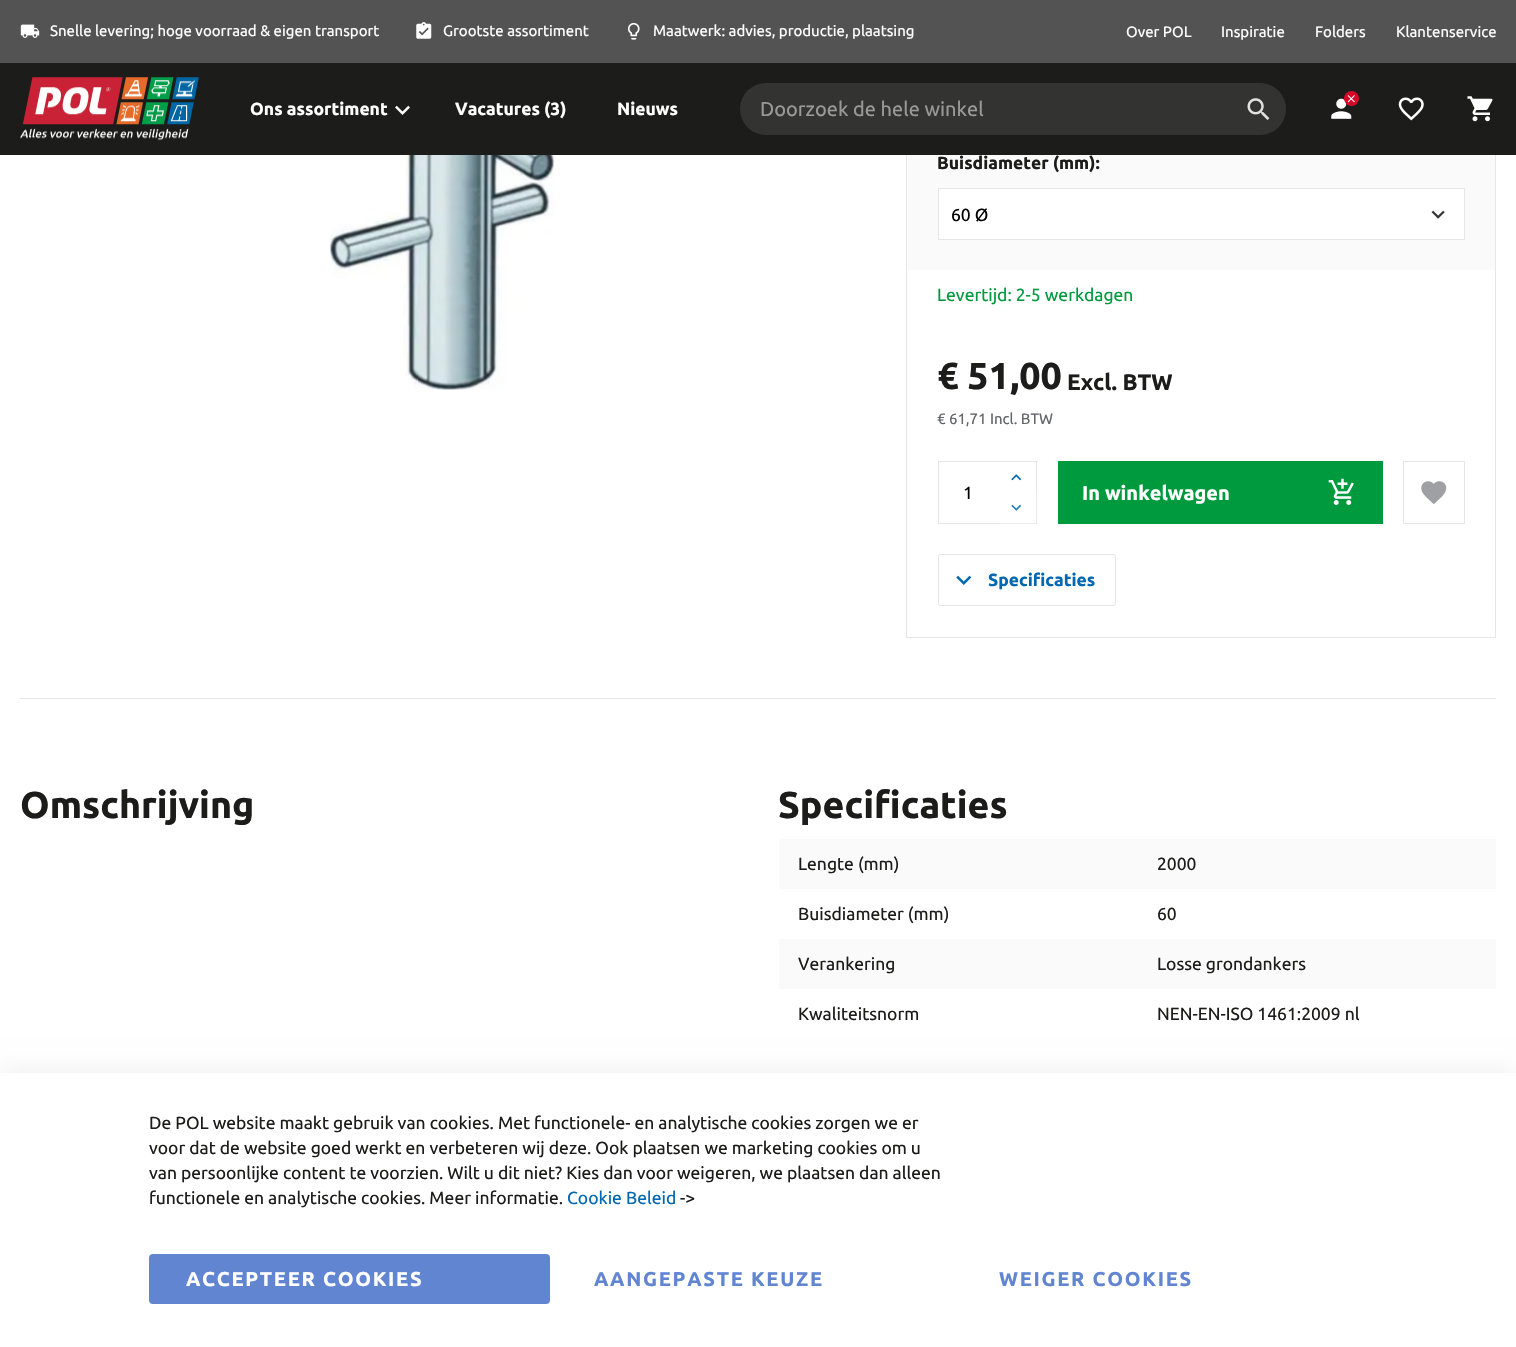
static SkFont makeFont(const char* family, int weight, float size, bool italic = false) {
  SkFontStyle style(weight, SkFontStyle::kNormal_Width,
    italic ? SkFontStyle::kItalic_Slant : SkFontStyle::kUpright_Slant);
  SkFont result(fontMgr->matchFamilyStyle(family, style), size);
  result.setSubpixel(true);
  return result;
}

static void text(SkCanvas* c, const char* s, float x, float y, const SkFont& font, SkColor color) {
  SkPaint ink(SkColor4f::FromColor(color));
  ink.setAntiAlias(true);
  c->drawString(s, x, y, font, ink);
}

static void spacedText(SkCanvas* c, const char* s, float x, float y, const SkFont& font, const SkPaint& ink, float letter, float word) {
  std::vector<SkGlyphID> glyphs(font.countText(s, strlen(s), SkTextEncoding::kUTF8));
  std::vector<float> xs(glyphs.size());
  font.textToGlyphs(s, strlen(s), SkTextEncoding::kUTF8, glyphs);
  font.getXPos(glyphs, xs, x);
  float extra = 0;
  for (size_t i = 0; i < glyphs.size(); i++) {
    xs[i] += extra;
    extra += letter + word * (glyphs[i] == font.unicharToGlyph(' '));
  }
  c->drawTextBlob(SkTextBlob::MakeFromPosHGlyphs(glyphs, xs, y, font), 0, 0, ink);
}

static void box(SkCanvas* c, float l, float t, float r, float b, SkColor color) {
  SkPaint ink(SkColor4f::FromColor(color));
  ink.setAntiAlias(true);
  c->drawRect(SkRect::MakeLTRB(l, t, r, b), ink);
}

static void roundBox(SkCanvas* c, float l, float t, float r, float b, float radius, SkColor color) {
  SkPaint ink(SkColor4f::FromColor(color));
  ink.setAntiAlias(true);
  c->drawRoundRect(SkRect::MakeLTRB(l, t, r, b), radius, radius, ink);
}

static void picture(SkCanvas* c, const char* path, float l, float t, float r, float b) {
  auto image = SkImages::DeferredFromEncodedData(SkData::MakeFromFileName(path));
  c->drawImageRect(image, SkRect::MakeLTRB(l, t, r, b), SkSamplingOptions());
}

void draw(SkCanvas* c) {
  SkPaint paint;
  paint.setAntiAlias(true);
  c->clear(0xffffffff);
  paint.setStyle(SkPaint::kStroke_Style);
  paint.setStrokeWidth(1);
  paint.setColor(0xffe7e6e6);
  c->drawRect(SkRect::MakeLTRB(906.5f, -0.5f, 1495.5f, 637.5f), paint);
  box(c, 0, 63, 1516, 155, 0xff1c1c1b);
  box(c, 0, 0, 1516, 63, 0xff535353);
  picture(c, "img_01.png", 20, 24, 40, 38);
  SkFont face1 = makeFont("Ubuntu", 400, 15);
  text(c, "Snelle levering; hoge voorraad & eigen transport", 50, 36, face1, 0xffffffff);
  picture(c, "img_02.png", 416, 22, 432, 39);
  text(c, "Grootste assortiment", 443, 36, face1, 0xffffffff);
  picture(c, "img_03.png", 627, 22, 640, 40);
  text(c, "Maatwerk: advies, productie, plaatsing", 653, 36, face1, 0xffffffff);
  text(c, "Over POL", 1126, 37, face1, 0xffffffff);
  text(c, "Inspiratie", 1221, 37, face1, 0xffffffff);
  text(c, "Folders", 1315, 37, face1, 0xffffffff);
  text(c, "Klantenservice", 1396, 37, face1, 0xffffffff);
  picture(c, "img_04.png", 20, 77, 199, 141);
  SkFont face2 = makeFont("Ubuntu", 700, 17.5f);
  text(c, "Ons assortiment", 250, 115, face2, 0xffffffff);
  picture(c, "img_05.png", 395, 105, 410, 115);
  text(c, "Vacatures (3)", 455, 115, face2, 0xffffffff);
  text(c, "Nieuws", 617, 115, face2, 0xffffffff);
  roundBox(c, 740, 83, 1286, 135, 26, 0xff333332);
  SkFont face3 = makeFont("Ubuntu", 400, 20);
  text(c, "Doorzoek de hele winkel", 760, 116, face3, 0xff999999);
  picture(c, "img_06.png", 1247, 98, 1270, 120);
  picture(c, "img_08.png", 1331, 98, 1352, 119);
  paint.setStyle(SkPaint::kFill_Style);
  paint.setColor(0xffd60829);
  c->drawCircle(1351.5f, 98.5f, 7.5f, paint);
  picture(c, "img_07.png", 1347, 95, 1355, 103);
  picture(c, "img_09.png", 1398, 97, 1424, 121);
  picture(c, "img_10.png", 1467, 96, 1493, 122);
  picture(c, "img_11.png", 329, 155, 556, 390);
  box(c, 908, 155, 1495, 270, 0xfffafafa);
  text(c, "Buisdiameter (mm):", 937, 169, face2, 0xff1c1c1b);
  box(c, 939, 189, 1464, 239, 0xffffffff);
  picture(c, "img_12.png", 1431, 210, 1445, 219);
  paint.setStyle(SkPaint::kStroke_Style);
  paint.setColor(0xffe7e6e6);
  c->drawRect(SkRect::MakeLTRB(938.5f, 188.5f, 1464.5f, 239.5f), paint);
  SkFont face4 = makeFont("Ubuntu", 400, 17.5f);
  text(c, "60 Ø", 951, 221, face4, 0xff000000);
  text(c, "Levertijd: 2-5 werkdagen", 937, 301, face4, 0xff009a3e);
  SkFont face5 = makeFont("Ubuntu", 700, 37.5f);
  text(c, "€ 51,00", 937, 389, face5, 0xff1c1c1b);
  SkFont face6 = makeFont("Ubuntu", 700, 22.5f);
  text(c, "Excl. BTW", 1067, 390, face6, 0xff1c1c1b);
  text(c, "€ 61,71 Incl. BTW", 937, 424, face1, 0xff626469);
  box(c, 938, 461, 1038, 462, 0xffe7e6e6);
  box(c, 1036, 461, 1037, 493, 0xffe7e6e6);
  picture(c, "img_13.png", 1011, 474, 1022, 481);
  box(c, 938, 523, 998, 524, 0xffe7e6e6);
  box(c, 938, 461, 939, 524, 0xffe7e6e6);
  text(c, "1", 963, 499, face4, 0xff000000);
  box(c, 1036, 493, 1037, 524, 0xffebeaea);
  box(c, 998, 523, 1038, 524, 0xffebeaea);
  picture(c, "img_14.png", 1011, 504, 1022, 511);
  box(c, 1058, 461, 1383, 524, 0xff009a3e);
  SkFont face7 = makeFont("Ubuntu", 700, 20);
  text(c, "In winkelwagen", 1082, 500, face7, 0xffffffff);
  picture(c, "img_15.png", 1328, 478, 1354, 505);
  c->drawRect(SkRect::MakeLTRB(1403.5f, 461.5f, 1464.5f, 523.5f), paint);
  picture(c, "img_16.png", 1421, 481, 1447, 504);
  c->drawRoundRect(SkRect::MakeLTRB(938.5f, 554.5f, 1115.5f, 605.5f), 2, 2, paint);
  picture(c, "img_17.png", 956, 575, 972, 585);
  text(c, "Specificaties", 988, 586, face2, 0xff0068b3);
  box(c, 20, 698, 1496, 699, 0xffe7e6e6);
  text(c, "Omschrijving", 20, 818, face5, 0xff1c1c1b);
  text(c, "Specificaties", 778, 818, face5, 0xff1c1c1b);
  box(c, 779, 839, 1496, 889, 0xfffafafa);
  text(c, "Lengte (mm)", 798, 870, face4, 0xff1c1c1b);
  text(c, "2000", 1157, 870, face4, 0xff1c1c1b);
  text(c, "Buisdiameter (mm)", 798, 920, face4, 0xff1c1c1b);
  text(c, "60", 1157, 920, face4, 0xff1c1c1b);
  box(c, 779, 939, 1496, 989, 0xfffafafa);
  text(c, "Verankering", 798, 970, face4, 0xff1c1c1b);
  text(c, "Losse grondankers", 1157, 970, face4, 0xff1c1c1b);
  text(c, "Kwaliteitsnorm", 798, 1020, face4, 0xff1c1c1b);
  text(c, "NEN-EN-ISO 1461:2009 nl", 1157, 1020, face4, 0xff1c1c1b);
  paint.setStyle(SkPaint::kFill_Style);
  paint.setColor(0x0f000000);
  paint.setMaskFilter(SkMaskFilter::MakeBlur(kNormal_SkBlurStyle, 11));
  c->drawRect(SkRect::MakeLTRB(0, 1070, 1516, 1345), paint);
  paint.setMaskFilter(nullptr);
  box(c, 0, 1073, 1516, 1347, 0xffffffff);
  text(c, "De POL website maakt gebruik van cookies. Met functionele- en analytische cookies zorgen we er", 149, 1129, face4, 0xff1c1c1b);
  text(c, "voor dat de website goed werkt en verbeteren wij deze. Ook plaatsen we marketing cookies om u", 149, 1154, face4, 0xff1c1c1b);
  text(c, "van persoonlijke content te voorzien. Wilt u dit niet? Kies dan voor weigeren, we plaatsen dan alleen", 149, 1179, face4, 0xff1c1c1b);
  text(c, "functionele en analytische cookies. Meer informatie.", 149, 1204, face4, 0xff1c1c1b);
  text(c, "Cookie Beleid", 567, 1204, face4, 0xff0068b3);
  text(c, "->", 680, 1204, face4, 0xff1c1c1b);
  roundBox(c, 149, 1254, 550, 1304, 4, 0xff6285d1);
  paint.setColor(0xffffffff);
  spacedText(c, "ACCEPTEER COOKIES", 186, 1286, face7, paint, 1.7f, 0);
  paint.setColor(0xff6285d1);
  spacedText(c, "AANGEPASTE KEUZE", 594, 1286, face7, paint, 1.7f, 0);
  spacedText(c, "WEIGER COOKIES", 999, 1286, face7, paint, 1.7f, 0);
}
